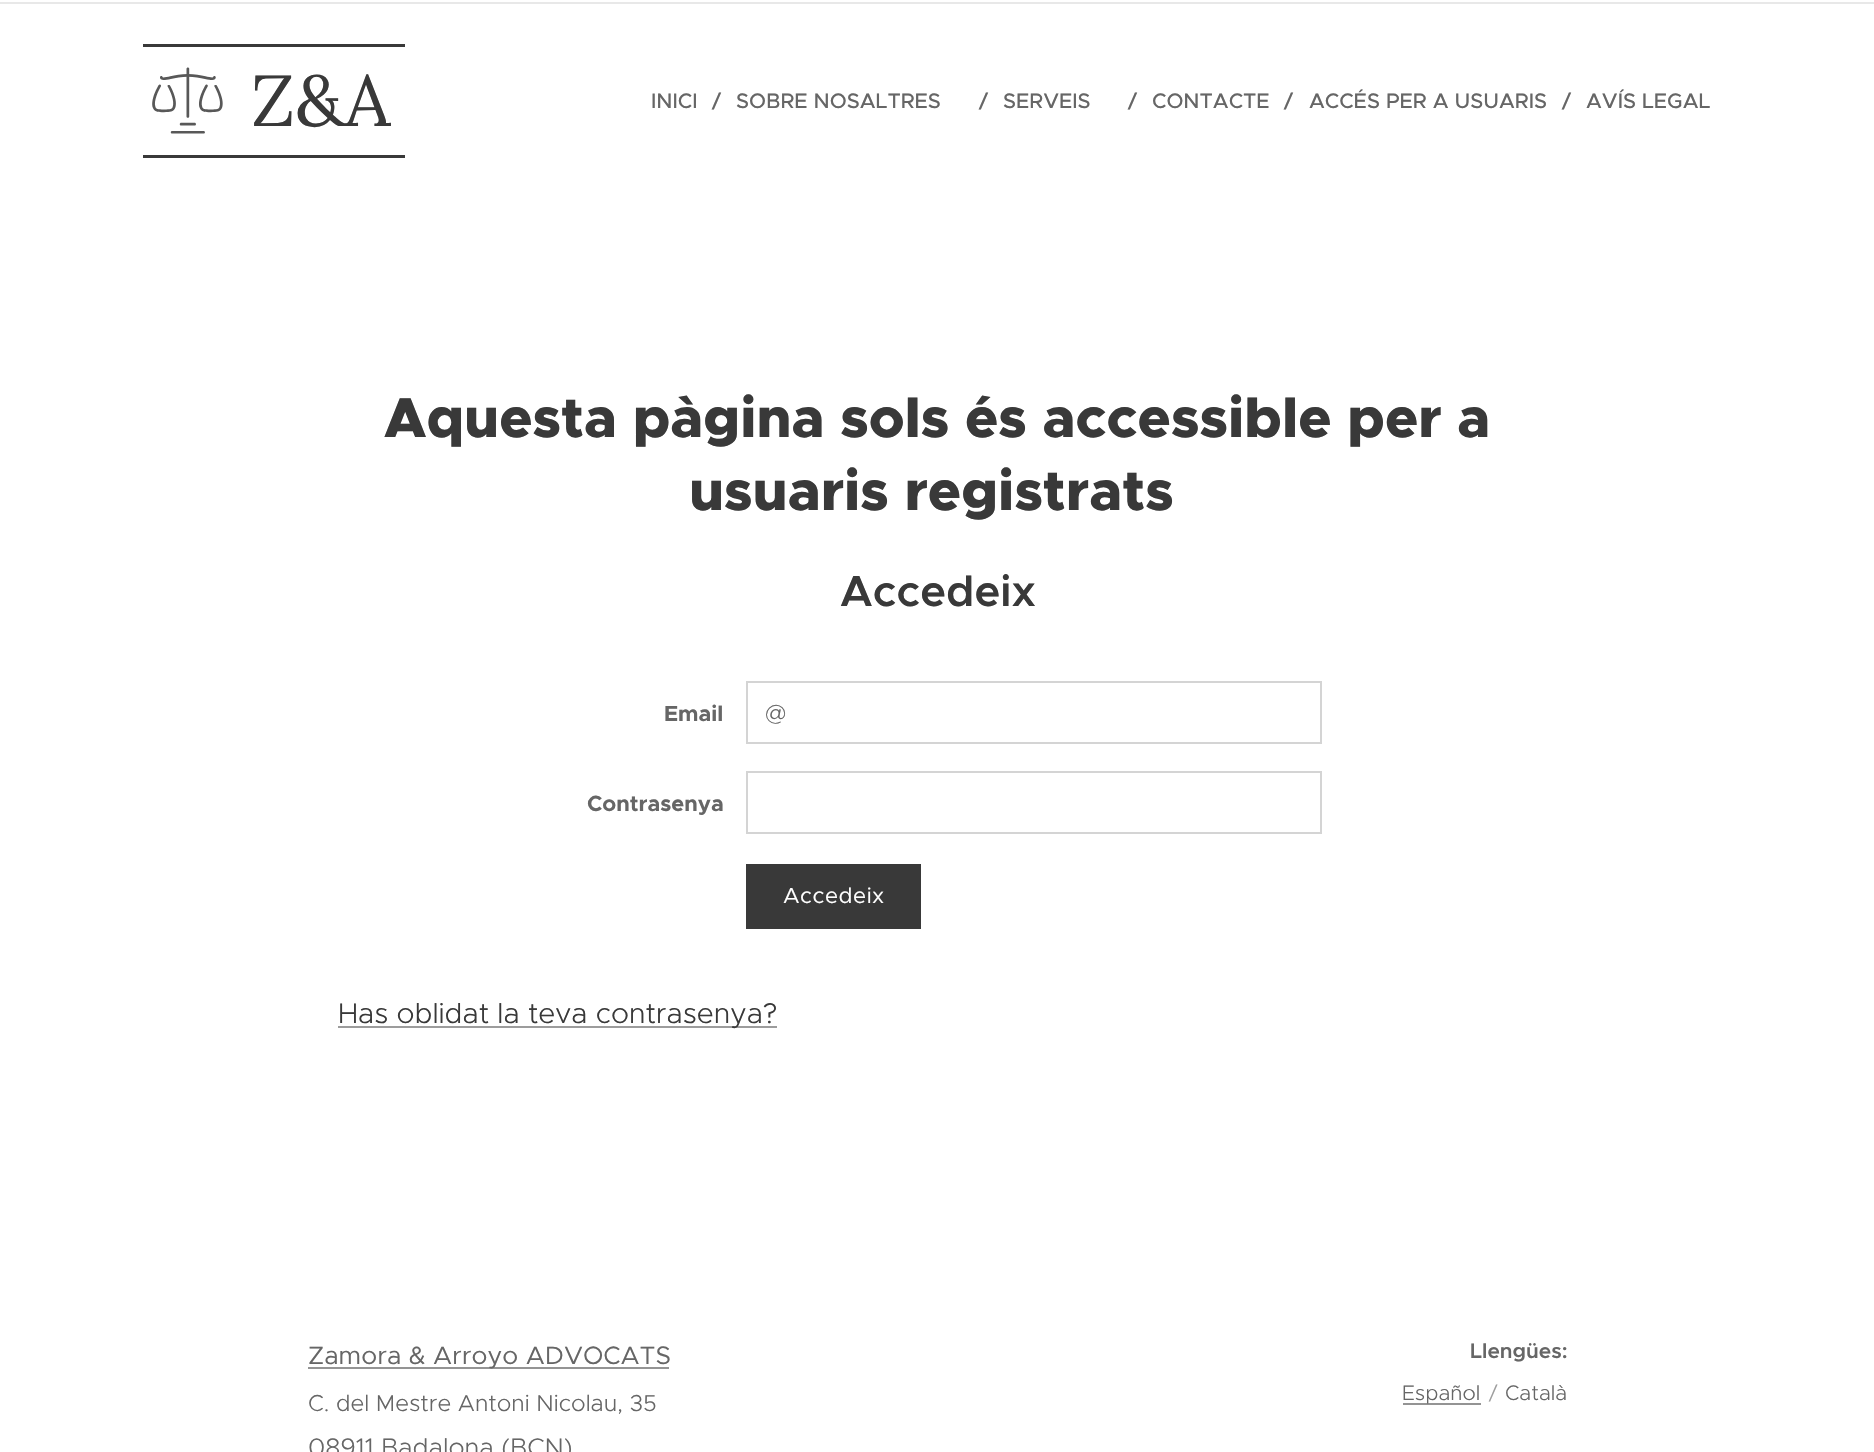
static SkFont makeFont(const char* family, int weight, float size, bool italic = false) {
  SkFontStyle style(weight, SkFontStyle::kNormal_Width,
    italic ? SkFontStyle::kItalic_Slant : SkFontStyle::kUpright_Slant);
  SkFont result(fontMgr->matchFamilyStyle(family, style), size);
  result.setSubpixel(true);
  return result;
}

static void text(SkCanvas* c, const char* s, float x, float y, const SkFont& font, SkColor color) {
  SkPaint ink(SkColor4f::FromColor(color));
  ink.setAntiAlias(true);
  c->drawString(s, x, y, font, ink);
}

static void spacedText(SkCanvas* c, const char* s, float x, float y, const SkFont& font, const SkPaint& ink, float letter, float word) {
  std::vector<SkGlyphID> glyphs(font.countText(s, strlen(s), SkTextEncoding::kUTF8));
  std::vector<float> xs(glyphs.size());
  font.textToGlyphs(s, strlen(s), SkTextEncoding::kUTF8, glyphs);
  font.getXPos(glyphs, xs, x);
  float extra = 0;
  for (size_t i = 0; i < glyphs.size(); i++) {
    xs[i] += extra;
    extra += letter + word * (glyphs[i] == font.unicharToGlyph(' '));
  }
  c->drawTextBlob(SkTextBlob::MakeFromPosHGlyphs(glyphs, xs, y, font), 0, 0, ink);
}

static void box(SkCanvas* c, float l, float t, float r, float b, SkColor color) {
  SkPaint ink(SkColor4f::FromColor(color));
  ink.setAntiAlias(true);
  c->drawRect(SkRect::MakeLTRB(l, t, r, b), ink);
}

static void picture(SkCanvas* c, const char* path, float l, float t, float r, float b) {
  auto image = SkImages::DeferredFromEncodedData(SkData::MakeFromFileName(path));
  c->drawImageRect(image, SkRect::MakeLTRB(l, t, r, b), SkSamplingOptions());
}

void draw(SkCanvas* c) {
  SkPaint paint;
  paint.setAntiAlias(true);
  c->clear(0xffffffff);
  box(c, 0, 2, 1874, 4, 0xffe8e8e8);
  box(c, 143, 44, 405, 47, 0xff393939);
  box(c, 143, 155, 405, 158, 0xff393939);
  picture(c, "img_01.png", 152, 67, 223, 134);
  SkFont face1 = makeFont("Lora", 400, 72);
  text(c, "Z&A", 251, 126, face1, 0xff393939);
  SkFont face2 = makeFont("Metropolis", 500, 21);
  text(c, "INICI", 651, 108, face2, 0xff666666);
  text(c, "/", 712, 108, face2, 0xff666666);
  text(c, "SOBRE NOSALTRES", 736, 108, face2, 0xff666666);
  text(c, "/", 979, 108, face2, 0xff666666);
  text(c, "SERVEIS", 1003, 108, face2, 0xff666666);
  text(c, "/", 1128, 108, face2, 0xff666666);
  text(c, "CONTACTE", 1152, 108, face2, 0xff666666);
  text(c, "/", 1284, 108, face2, 0xff666666);
  text(c, "ACCÉS PER A USUARIS", 1309, 108, face2, 0xff666666);
  text(c, "/", 1562, 108, face2, 0xff666666);
  text(c, "AVÍS LEGAL", 1586, 108, face2, 0xff666666);
  SkFont face3 = makeFont("Metropolis", 800, 56.5f);
  text(c, "Aquesta pàgina sols és accessible per a", 384, 437, face3, 0xff393939);
  text(c, "usuaris registrats", 689, 510, face3, 0xff393939);
  SkFont face4 = makeFont("Metropolis", 600, 43.5f);
  text(c, "Accedeix", 840, 606, face4, 0xff393939);
  SkFont face5 = makeFont("Metropolis", 700, 22);
  text(c, "Email", 664, 721, face5, 0xff666666);
  paint.setStyle(SkPaint::kStroke_Style);
  paint.setStrokeWidth(2);
  paint.setColor(0xffd4d4d4);
  c->drawRect(SkRect::MakeLTRB(747, 682, 1321, 743), paint);
  SkFont face6 = makeFont("Metropolis", 300, 24);
  text(c, "@", 765, 721, face6, 0xff666666);
  text(c, "Contrasenya", 587, 811, face5, 0xff666666);
  c->drawRect(SkRect::MakeLTRB(747, 772, 1321, 833), paint);
  box(c, 746, 864, 921, 929, 0xff393939);
  SkFont face7 = makeFont("Metropolis", 400, 22);
  paint.setStyle(SkPaint::kFill_Style);
  paint.setColor(0xffffffff);
  spacedText(c, "Accedeix", 783, 903, face7, paint, 0.5f, 0);
  box(c, 338, 1026, 777, 1028, 0xff9c9c9c);
  SkFont face8 = makeFont("Metropolis", 300, 28.5f);
  text(c, "Has oblidat la teva contrasenya?", 338, 1023, face8, 0xff393939);
  box(c, 308, 1367, 669, 1369, 0xff949494);
  SkFont face9 = makeFont("Metropolis", 400, 25.25f);
  text(c, "Zamora & Arroyo ADVOCATS", 308, 1364, face9, 0xff666666);
  SkFont face10 = makeFont("Metropolis", 300, 23.1f);
  text(c, "C. del Mestre Antoni Nicolau, 35", 308, 1411, face10, 0xff666666);
  SkFont face11 = makeFont("Metropolis", 300, 25.5f);
  text(c, "08911 Badalona (BCN)", 308, 1456, face11, 0xff666666);
  SkFont face12 = makeFont("Metropolis", 600, 21);
  text(c, "Llengües:", 1470, 1358, face12, 0xff666666);
  box(c, 1403, 1403, 1481, 1405, 0xff949494);
  SkFont face13 = makeFont("Metropolis", 300, 21);
  text(c, "Español", 1402, 1400, face13, 0xff666666);
  text(c, "/", 1489, 1400, face13, 0xff9d9d9d);
  text(c, "Català", 1505, 1400, face13, 0xff666666);
}
